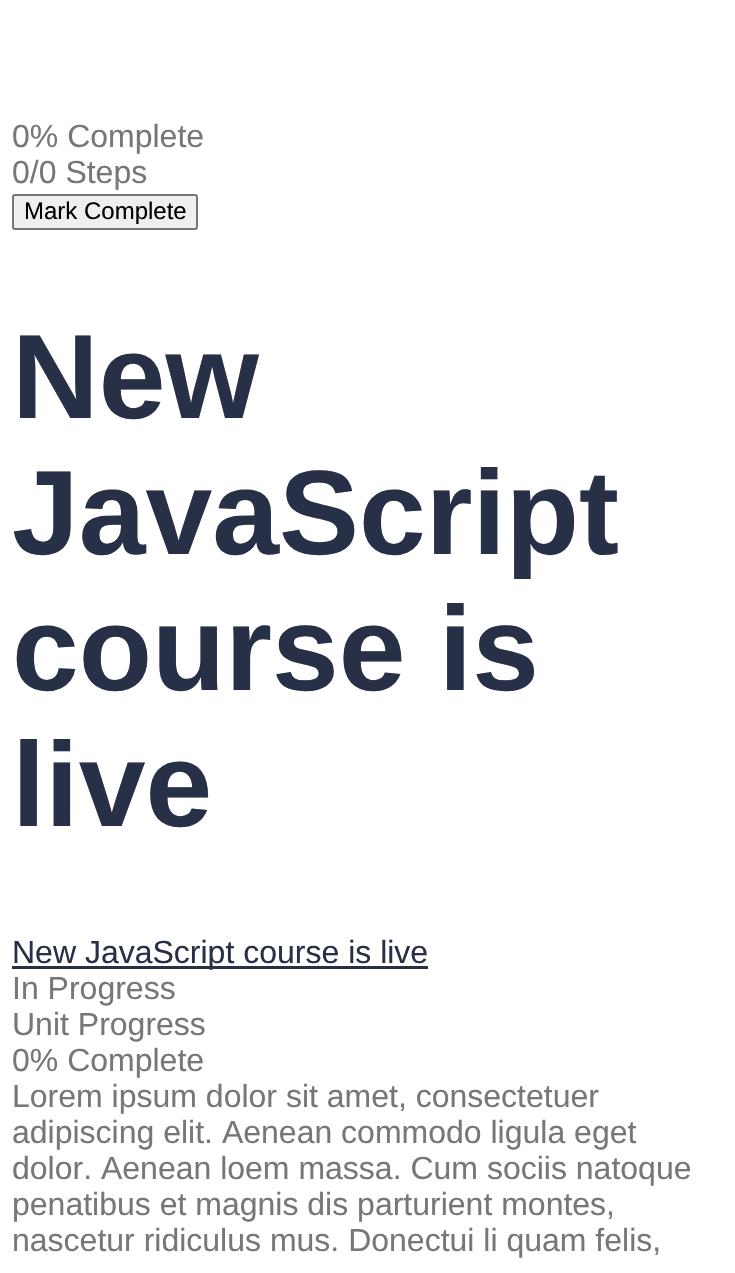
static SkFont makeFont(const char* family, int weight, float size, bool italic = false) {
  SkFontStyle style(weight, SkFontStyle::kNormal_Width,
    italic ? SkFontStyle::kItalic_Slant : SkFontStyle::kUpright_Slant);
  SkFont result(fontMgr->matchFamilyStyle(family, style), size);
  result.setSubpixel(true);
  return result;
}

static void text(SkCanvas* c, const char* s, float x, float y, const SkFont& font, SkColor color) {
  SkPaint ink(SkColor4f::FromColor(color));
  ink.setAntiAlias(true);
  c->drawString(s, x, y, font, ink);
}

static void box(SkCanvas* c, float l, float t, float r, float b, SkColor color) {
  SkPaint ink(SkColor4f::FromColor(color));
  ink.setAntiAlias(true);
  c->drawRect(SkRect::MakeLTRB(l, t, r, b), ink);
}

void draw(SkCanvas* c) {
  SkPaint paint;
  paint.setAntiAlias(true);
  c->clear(0xffffffff);
  SkFont face1 = makeFont("Liberation Sans", 400, 32);
  text(c, "0% Complete", 12, 147, face1, 0xff77777a);
  text(c, "0/0 Steps", 12, 183, face1, 0xff77777a);
  paint.setColor(0xffefefef);
  c->drawRoundRect(SkRect::MakeLTRB(13, 195, 197, 229), 2, 2, paint);
  paint.setStyle(SkPaint::kStroke_Style);
  paint.setStrokeWidth(2);
  paint.setColor(0xff767676);
  c->drawRoundRect(SkRect::MakeLTRB(13, 195, 197, 229), 2, 2, paint);
  SkFont face2 = makeFont("Liberation Sans", 400, 24);
  text(c, "Mark Complete", 24, 219, face2, 0xff000000);
  SkFont face3 = makeFont("Liberation Sans", 700, 120);
  text(c, "New", 12, 418, face3, 0xff283048);
  text(c, "JavaScript", 12, 554, face3, 0xff283048);
  text(c, "course is", 12, 690, face3, 0xff283048);
  text(c, "live", 12, 826, face3, 0xff283048);
  box(c, 12, 966, 428, 969, 0xff283048);
  text(c, "New JavaScript course is live", 12, 963, face1, 0xff283048);
  text(c, "In Progress", 12, 999, face1, 0xff77777a);
  text(c, "Unit Progress", 12, 1035, face1, 0xff77777a);
  text(c, "0% Complete", 12, 1071, face1, 0xff77777a);
  text(c, "Lorem ipsum dolor sit amet, consectetuer", 12, 1107, face1, 0xff77777a);
  text(c, "adipiscing elit. Aenean commodo ligula eget", 12, 1143, face1, 0xff77777a);
  text(c, "dolor. Aenean loem massa. Cum sociis natoque", 12, 1179, face1, 0xff77777a);
  text(c, "penatibus et magnis dis parturient montes,", 12, 1215, face1, 0xff77777a);
  text(c, "nascetur ridiculus mus. Donectui li quam felis,", 12, 1251, face1, 0xff77777a);
}
